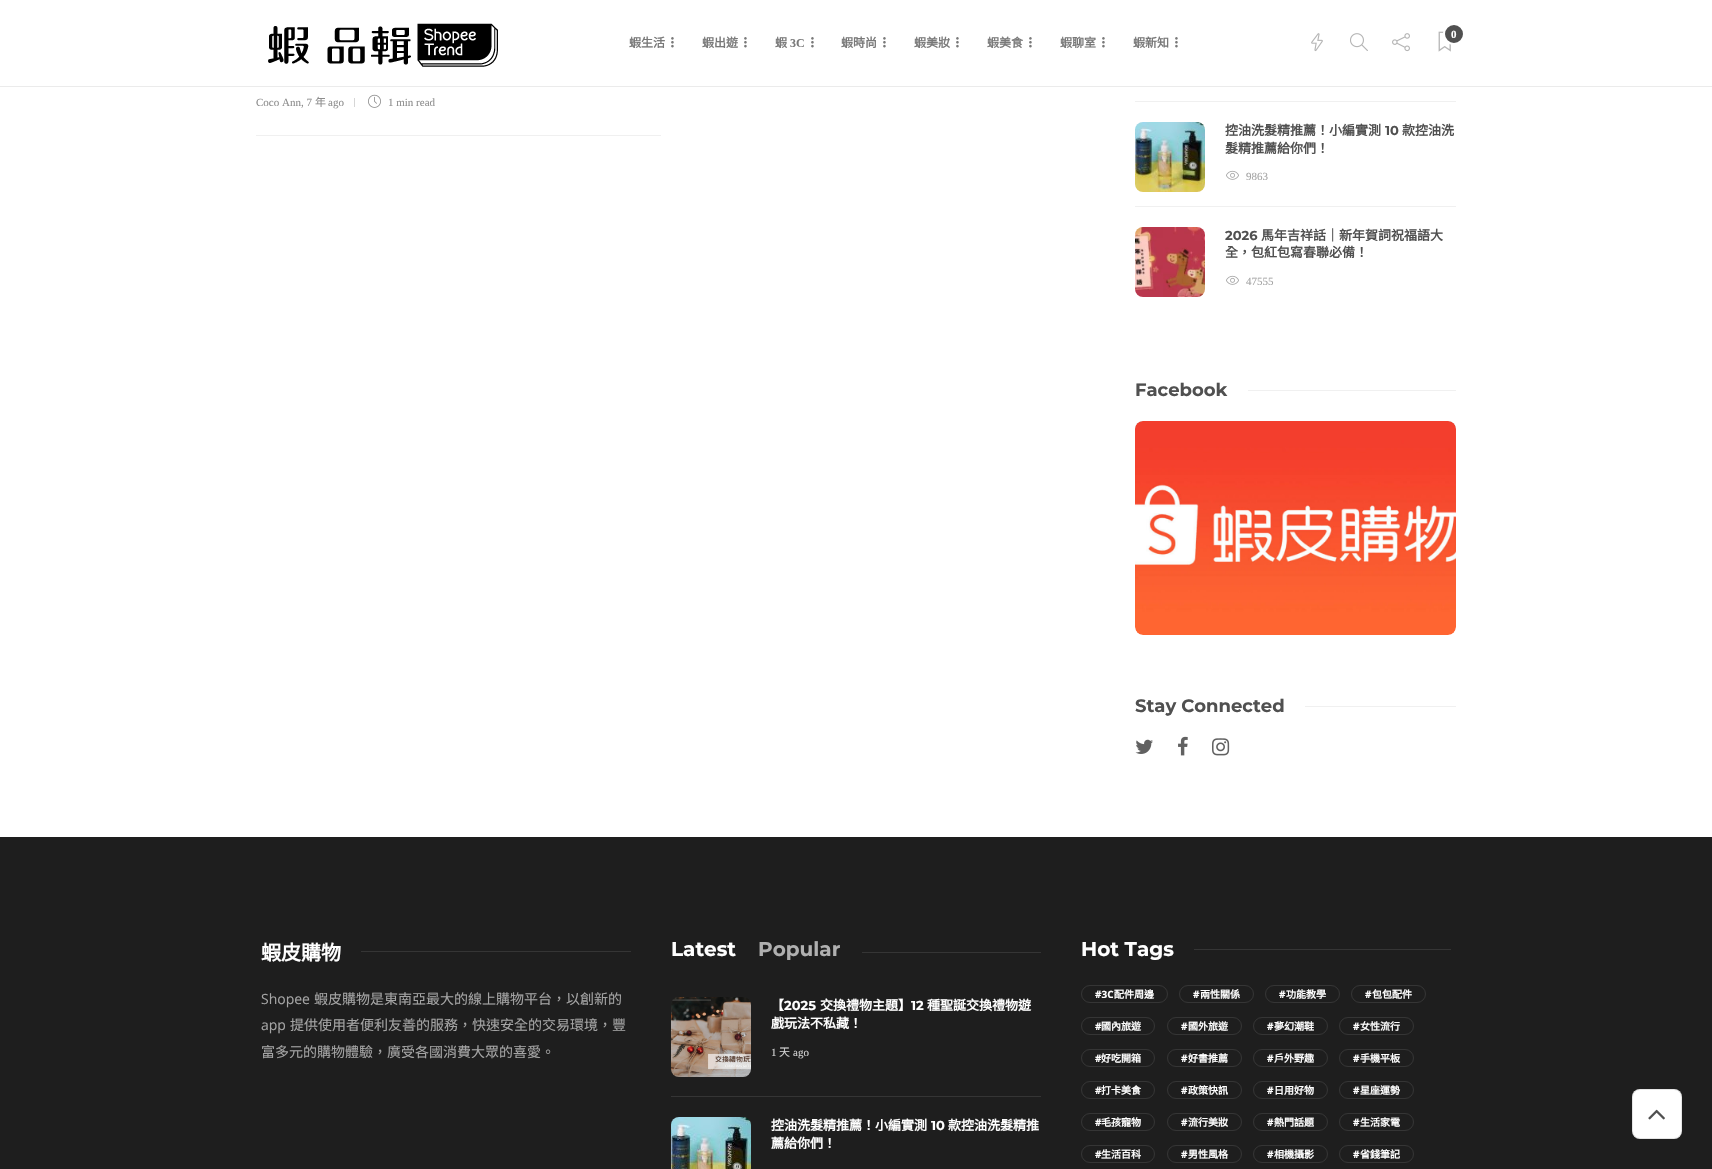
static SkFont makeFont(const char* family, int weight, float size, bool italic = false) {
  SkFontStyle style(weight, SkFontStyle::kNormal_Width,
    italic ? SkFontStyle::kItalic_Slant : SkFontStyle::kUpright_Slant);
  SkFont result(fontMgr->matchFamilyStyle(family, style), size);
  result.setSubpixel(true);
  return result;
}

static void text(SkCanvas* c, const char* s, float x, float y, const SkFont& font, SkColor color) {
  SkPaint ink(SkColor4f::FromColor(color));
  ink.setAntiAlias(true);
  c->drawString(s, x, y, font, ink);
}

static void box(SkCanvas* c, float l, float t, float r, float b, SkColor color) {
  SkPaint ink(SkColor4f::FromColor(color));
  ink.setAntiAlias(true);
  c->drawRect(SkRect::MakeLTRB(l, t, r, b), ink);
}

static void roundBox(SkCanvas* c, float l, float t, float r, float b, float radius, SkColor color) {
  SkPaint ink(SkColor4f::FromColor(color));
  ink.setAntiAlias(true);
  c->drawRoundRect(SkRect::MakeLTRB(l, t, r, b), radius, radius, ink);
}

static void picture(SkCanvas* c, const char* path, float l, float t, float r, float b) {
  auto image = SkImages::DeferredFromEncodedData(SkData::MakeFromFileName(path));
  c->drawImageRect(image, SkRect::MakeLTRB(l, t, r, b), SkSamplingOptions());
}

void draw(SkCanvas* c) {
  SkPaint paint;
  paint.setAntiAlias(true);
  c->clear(0xffffffff);
  box(c, 0, 86, 1712, 87, 0xffebebeb);
  picture(c, "img_01.png", 268, 23, 498, 67);
  picture(c, "img_02.png", 1311, 33, 1323, 52);
  picture(c, "img_03.png", 1350, 33, 1368, 51);
  picture(c, "img_04.png", 1392, 33, 1410, 52);
  picture(c, "img_05.png", 1438, 31, 1451, 52);
  paint.setColor(0xff505050);
  c->drawCircle(1454, 34, 10, paint);
  paint.setStyle(SkPaint::kStroke_Style);
  paint.setStrokeWidth(2);
  paint.setColor(0xffffffff);
  c->drawCircle(1454, 34, 10, paint);
  SkFont face1 = makeFont("Liberation Serif", 700, 11);
  text(c, "0", 1451, 38, face1, 0xffffffff);
  SkFont face2 = makeFont("Noto Sans CJK TC", 700, 12);
  text(c, "蝦生活", 629, 47, face2, 0xff797979);
  picture(c, "img_06.png", 671, 37, 674, 48);
  text(c, "蝦出遊", 702, 47, face2, 0xff797979);
  picture(c, "img_06.png", 744, 37, 747, 48);
  text(c, "蝦", 775, 47, face2, 0xff797979);
  SkFont face3 = makeFont("Liberation Serif", 700, 12);
  text(c, "3C", 790, 47, face3, 0xff797979);
  picture(c, "img_06.png", 811, 37, 814, 48);
  text(c, "蝦時尚", 841, 47, face2, 0xff797979);
  picture(c, "img_06.png", 883, 37, 886, 48);
  text(c, "蝦美妝", 914, 47, face2, 0xff797979);
  picture(c, "img_06.png", 956, 37, 959, 48);
  text(c, "蝦美食", 987, 47, face2, 0xff797979);
  picture(c, "img_06.png", 1029, 37, 1032, 48);
  text(c, "蝦聊室", 1060, 47, face2, 0xff797979);
  picture(c, "img_06.png", 1102, 37, 1105, 48);
  text(c, "蝦新知", 1133, 47, face2, 0xff797979);
  picture(c, "img_06.png", 1175, 37, 1178, 48);
  box(c, 256, 135, 661, 136, 0xfff0f0f0);
  SkFont face4 = makeFont("Liberation Serif", 400, 11);
  text(c, "Coco Ann, 7", 256, 106, face4, 0xff8d8d8d);
  SkFont face5 = makeFont("Noto Sans CJK TC", 400, 11);
  text(c, "年", 315, 106, face5, 0xff8d8d8d);
  text(c, "ago", 328, 106, face4, 0xff8d8d8d);
  box(c, 354, 98, 355, 107, 0xffd6d6d6);
  picture(c, "img_07.png", 368, 94, 381, 108);
  text(c, "1 min read", 388, 106, face4, 0xff8d8d8d);
  box(c, 1135, 101, 1456, 102, 0xfff0f0f0);
  box(c, 1135, 206, 1456, 207, 0xfff0f0f0);
  picture(c, "img_08.png", 1135, 122, 1205, 192);
  SkFont face6 = makeFont("Noto Sans CJK TC", 700, 13);
  text(c, "控油洗髮精推薦！小編實測", 1225, 135, face6, 0xff505050);
  SkFont face7 = makeFont("Montserrat", 700, 13);
  text(c, "10", 1385, 135, face7, 0xff505050);
  text(c, "款控油洗", 1402, 135, face6, 0xff505050);
  text(c, "髮精推薦給你們！", 1225, 153, face6, 0xff505050);
  picture(c, "img_09.png", 1226, 170, 1239, 180);
  text(c, "9863", 1246, 180, face4, 0xffa4a4a4);
  picture(c, "img_10.png", 1135, 227, 1205, 297);
  text(c, "2026", 1225, 240, face7, 0xff505050);
  text(c, "馬年吉祥話｜新年賀詞祝福語大", 1261, 240, face6, 0xff505050);
  text(c, "全，包紅包寫春聯必備！", 1225, 257, face6, 0xff505050);
  picture(c, "img_09.png", 1226, 275, 1239, 285);
  text(c, "47555", 1246, 285, face4, 0xffa4a4a4);
  SkFont face8 = makeFont("Montserrat", 700, 18);
  text(c, "Facebook", 1135, 396, face8, 0xff505050);
  box(c, 1248, 390, 1456, 391, 0xfff0f0f0);
  picture(c, "img_11.png", 1135, 421, 1456, 635);
  picture(c, "img_12.png", 1135, 421, 1456, 635);
  text(c, "Stay Connected", 1135, 712, face8, 0xff505050);
  box(c, 1305, 706, 1456, 707, 0xfff0f0f0);
  picture(c, "img_13.png", 1135, 739, 1153, 754);
  picture(c, "img_14.png", 1178, 736, 1188, 756);
  picture(c, "img_15.png", 1212, 738, 1230, 756);
  box(c, 0, 837, 1712, 1169, 0xff1e1e1e);
  SkFont face9 = makeFont("Noto Sans CJK TC", 700, 20);
  text(c, "蝦皮購物", 261, 960, face9, 0xffffffff);
  box(c, 361, 951, 631, 952, 0xff353535);
  SkFont face10 = makeFont("Open Sans", 400, 14);
  text(c, "Shopee", 261, 1004, face10, 0xffa4a4a4);
  SkFont face11 = makeFont("Noto Sans CJK TC", 400, 14);
  text(c, "蝦皮購物是東南亞最大的線上購物平台，以創新的", 314, 1004, face11, 0xffa4a4a4);
  text(c, "app", 261, 1030, face10, 0xffa4a4a4);
  text(c, "提供使用者便利友善的服務，快速安全的交易環境，豐", 290, 1030, face11, 0xffa4a4a4);
  text(c, "富多元的購物體驗，廣受各國消費大眾的喜愛。", 261, 1057, face11, 0xffa4a4a4);
  SkFont face12 = makeFont("Montserrat", 700, 20);
  text(c, "Latest", 671, 956, face12, 0xffffffff);
  text(c, "Popular", 758, 956, face12, 0xffb0b0b0);
  box(c, 862, 952, 1041, 953, 0xff353535);
  box(c, 671, 1096, 1041, 1097, 0xff353535);
  picture(c, "img_16.png", 671, 997, 751, 1077);
  text(c, "【", 771, 1010, face6, 0xffffffff);
  text(c, "2025", 784, 1010, face7, 0xffffffff);
  text(c, "交換禮物主題】", 820, 1010, face6, 0xffffffff);
  text(c, "12", 911, 1010, face7, 0xffffffff);
  text(c, "種聖誕交換禮物遊", 927, 1010, face6, 0xffffffff);
  text(c, "戲玩法不私藏！", 771, 1028, face6, 0xffffffff);
  text(c, "1", 771, 1056, face4, 0xffd2d2d2);
  text(c, "天", 779, 1056, face5, 0xffd2d2d2);
  text(c, "ago", 793, 1056, face4, 0xffd2d2d2);
  picture(c, "img_17.png", 671, 1117, 751, 1169);
  text(c, "控油洗髮精推薦！小編實測", 771, 1130, face6, 0xffffffff);
  text(c, "10", 931, 1130, face7, 0xffffffff);
  text(c, "款控油洗髮精推", 948, 1130, face6, 0xffffffff);
  text(c, "薦給你們！", 771, 1148, face6, 0xffffffff);
  text(c, "Hot Tags", 1081, 956, face12, 0xffffffff);
  box(c, 1194, 949, 1451, 950, 0xff353535);
  paint.setStrokeWidth(1);
  paint.setColor(0xff353535);
  c->drawRoundRect(SkRect::MakeLTRB(1081.5f, 985.5f, 1167.5f, 1002.5f), 8.5f, 8.5f, paint);
  SkFont face13 = makeFont("Open Sans", 700, 10);
  text(c, "#3C", 1095, 998, face13, 0xffffffff);
  SkFont face14 = makeFont("Noto Sans CJK TC", 700, 10);
  text(c, "配件周邊", 1114, 998, face14, 0xffffffff);
  c->drawRoundRect(SkRect::MakeLTRB(1179.5f, 985.5f, 1253.5f, 1002.5f), 8.5f, 8.5f, paint);
  text(c, "#", 1193, 998, face13, 0xffffffff);
  text(c, "兩性關係", 1200, 998, face14, 0xffffffff);
  c->drawRoundRect(SkRect::MakeLTRB(1265.5f, 985.5f, 1339.5f, 1002.5f), 8.5f, 8.5f, paint);
  text(c, "#", 1279, 998, face13, 0xffffffff);
  text(c, "功能教學", 1286, 998, face14, 0xffffffff);
  c->drawRoundRect(SkRect::MakeLTRB(1351.5f, 985.5f, 1425.5f, 1002.5f), 8.5f, 8.5f, paint);
  text(c, "#", 1365, 998, face13, 0xffffffff);
  text(c, "包包配件", 1372, 998, face14, 0xffffffff);
  c->drawRoundRect(SkRect::MakeLTRB(1081.5f, 1017.5f, 1154.5f, 1034.5f), 8.5f, 8.5f, paint);
  text(c, "#", 1095, 1030, face13, 0xffffffff);
  text(c, "國內旅遊", 1101, 1030, face14, 0xffffffff);
  c->drawRoundRect(SkRect::MakeLTRB(1167.5f, 1017.5f, 1241.5f, 1034.5f), 8.5f, 8.5f, paint);
  text(c, "#", 1181, 1030, face13, 0xffffffff);
  text(c, "國外旅遊", 1188, 1030, face14, 0xffffffff);
  c->drawRoundRect(SkRect::MakeLTRB(1253.5f, 1017.5f, 1327.5f, 1034.5f), 8.5f, 8.5f, paint);
  text(c, "#", 1267, 1030, face13, 0xffffffff);
  text(c, "夢幻潮鞋", 1274, 1030, face14, 0xffffffff);
  c->drawRoundRect(SkRect::MakeLTRB(1339.5f, 1017.5f, 1413.5f, 1034.5f), 8.5f, 8.5f, paint);
  text(c, "#", 1353, 1030, face13, 0xffffffff);
  text(c, "女性流行", 1360, 1030, face14, 0xffffffff);
  c->drawRoundRect(SkRect::MakeLTRB(1081.5f, 1049.5f, 1154.5f, 1066.5f), 8.5f, 8.5f, paint);
  text(c, "#", 1095, 1062, face13, 0xffffffff);
  text(c, "好吃開箱", 1101, 1062, face14, 0xffffffff);
  c->drawRoundRect(SkRect::MakeLTRB(1167.5f, 1049.5f, 1241.5f, 1066.5f), 8.5f, 8.5f, paint);
  text(c, "#", 1181, 1062, face13, 0xffffffff);
  text(c, "好書推薦", 1188, 1062, face14, 0xffffffff);
  c->drawRoundRect(SkRect::MakeLTRB(1253.5f, 1049.5f, 1327.5f, 1066.5f), 8.5f, 8.5f, paint);
  text(c, "#", 1267, 1062, face13, 0xffffffff);
  text(c, "戶外野趣", 1274, 1062, face14, 0xffffffff);
  c->drawRoundRect(SkRect::MakeLTRB(1339.5f, 1049.5f, 1413.5f, 1066.5f), 8.5f, 8.5f, paint);
  text(c, "#", 1353, 1062, face13, 0xffffffff);
  text(c, "手機平板", 1360, 1062, face14, 0xffffffff);
  c->drawRoundRect(SkRect::MakeLTRB(1081.5f, 1081.5f, 1154.5f, 1098.5f), 8.5f, 8.5f, paint);
  text(c, "#", 1095, 1094, face13, 0xffffffff);
  text(c, "打卡美食", 1101, 1094, face14, 0xffffffff);
  c->drawRoundRect(SkRect::MakeLTRB(1167.5f, 1081.5f, 1241.5f, 1098.5f), 8.5f, 8.5f, paint);
  text(c, "#", 1181, 1094, face13, 0xffffffff);
  text(c, "政策快訊", 1188, 1094, face14, 0xffffffff);
  c->drawRoundRect(SkRect::MakeLTRB(1253.5f, 1081.5f, 1327.5f, 1098.5f), 8.5f, 8.5f, paint);
  text(c, "#", 1267, 1094, face13, 0xffffffff);
  text(c, "日用好物", 1274, 1094, face14, 0xffffffff);
  c->drawRoundRect(SkRect::MakeLTRB(1339.5f, 1081.5f, 1413.5f, 1098.5f), 8.5f, 8.5f, paint);
  text(c, "#", 1353, 1094, face13, 0xffffffff);
  text(c, "星座運勢", 1360, 1094, face14, 0xffffffff);
  c->drawRoundRect(SkRect::MakeLTRB(1081.5f, 1113.5f, 1154.5f, 1130.5f), 8.5f, 8.5f, paint);
  text(c, "#", 1095, 1126, face13, 0xffffffff);
  text(c, "毛孩寵物", 1101, 1126, face14, 0xffffffff);
  c->drawRoundRect(SkRect::MakeLTRB(1167.5f, 1113.5f, 1241.5f, 1130.5f), 8.5f, 8.5f, paint);
  text(c, "#", 1181, 1126, face13, 0xffffffff);
  text(c, "流行美妝", 1188, 1126, face14, 0xffffffff);
  c->drawRoundRect(SkRect::MakeLTRB(1253.5f, 1113.5f, 1327.5f, 1130.5f), 8.5f, 8.5f, paint);
  text(c, "#", 1267, 1126, face13, 0xffffffff);
  text(c, "熱門話題", 1274, 1126, face14, 0xffffffff);
  c->drawRoundRect(SkRect::MakeLTRB(1339.5f, 1113.5f, 1413.5f, 1130.5f), 8.5f, 8.5f, paint);
  text(c, "#", 1353, 1126, face13, 0xffffffff);
  text(c, "生活家電", 1360, 1126, face14, 0xffffffff);
  c->drawRoundRect(SkRect::MakeLTRB(1081.5f, 1145.5f, 1154.5f, 1162.5f), 8.5f, 8.5f, paint);
  text(c, "#", 1095, 1158, face13, 0xffffffff);
  text(c, "生活百科", 1101, 1158, face14, 0xffffffff);
  c->drawRoundRect(SkRect::MakeLTRB(1167.5f, 1145.5f, 1241.5f, 1162.5f), 8.5f, 8.5f, paint);
  text(c, "#", 1181, 1158, face13, 0xffffffff);
  text(c, "男性風格", 1188, 1158, face14, 0xffffffff);
  c->drawRoundRect(SkRect::MakeLTRB(1253.5f, 1145.5f, 1327.5f, 1162.5f), 8.5f, 8.5f, paint);
  text(c, "#", 1267, 1158, face13, 0xffffffff);
  text(c, "相機攝影", 1274, 1158, face14, 0xffffffff);
  c->drawRoundRect(SkRect::MakeLTRB(1339.5f, 1145.5f, 1413.5f, 1162.5f), 8.5f, 8.5f, paint);
  text(c, "#", 1353, 1158, face13, 0xffffffff);
  text(c, "省錢筆記", 1360, 1158, face14, 0xffffffff);
  roundBox(c, 1632, 1089, 1682, 1139, 8, 0xffffffff);
  paint.setColor(0x1a000000);
  c->drawRoundRect(SkRect::MakeLTRB(1632.5f, 1089.5f, 1681.5f, 1138.5f), 7.5f, 7.5f, paint);
  picture(c, "img_18.png", 1648, 1109, 1665, 1120);
}
